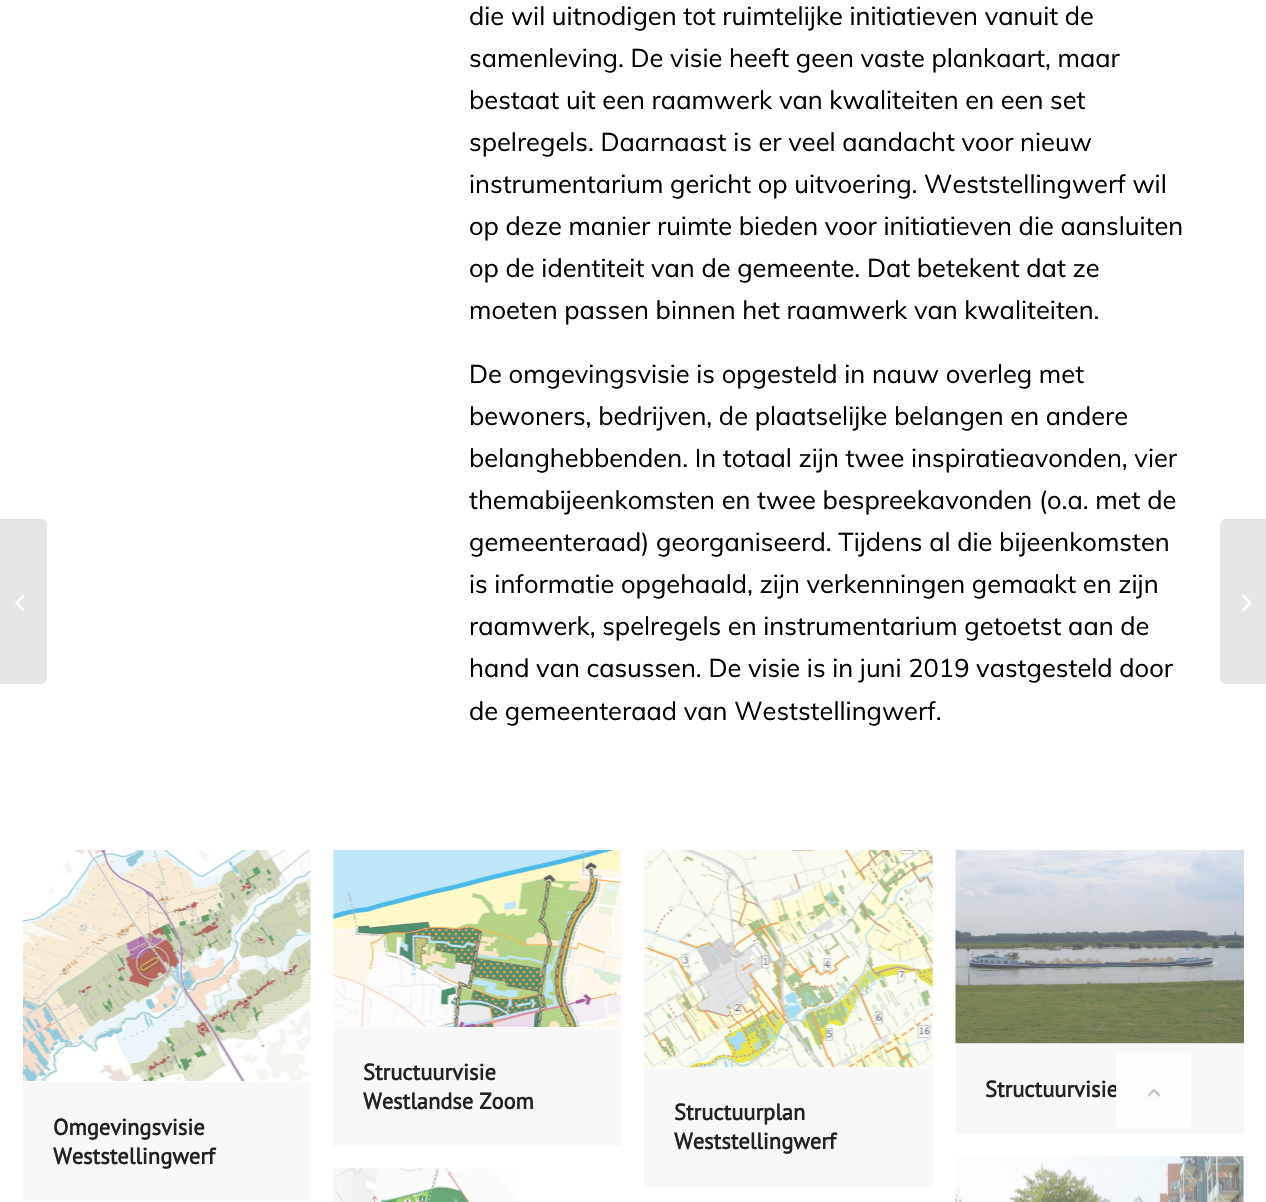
static SkFont makeFont(const char* family, int weight, float size, bool italic = false) {
  SkFontStyle style(weight, SkFontStyle::kNormal_Width,
    italic ? SkFontStyle::kItalic_Slant : SkFontStyle::kUpright_Slant);
  SkFont result(fontMgr->matchFamilyStyle(family, style), size);
  result.setSubpixel(true);
  return result;
}

static void text(SkCanvas* c, const char* s, float x, float y, const SkFont& font, SkColor color) {
  SkPaint ink(SkColor4f::FromColor(color));
  ink.setAntiAlias(true);
  c->drawString(s, x, y, font, ink);
}

static void box(SkCanvas* c, float l, float t, float r, float b, SkColor color) {
  SkPaint ink(SkColor4f::FromColor(color));
  ink.setAntiAlias(true);
  c->drawRect(SkRect::MakeLTRB(l, t, r, b), ink);
}

static void roundBox(SkCanvas* c, float l, float t, float r, float b, float radius, SkColor color) {
  SkPaint ink(SkColor4f::FromColor(color));
  ink.setAntiAlias(true);
  c->drawRoundRect(SkRect::MakeLTRB(l, t, r, b), radius, radius, ink);
}

static void picture(SkCanvas* c, const char* path, float l, float t, float r, float b) {
  auto image = SkImages::DeferredFromEncodedData(SkData::MakeFromFileName(path));
  c->drawImageRect(image, SkRect::MakeLTRB(l, t, r, b), SkSamplingOptions());
}

void draw(SkCanvas* c) {
  SkPaint paint;
  paint.setAntiAlias(true);
  c->clear(0xffffffff);
  paint.setColor(0xffe6e6e6);
  c->drawPath(SkPathBuilder().moveTo(0, 519).lineTo(41, 519).cubicTo(44.5f, 519, 47, 521.5f, 47, 525).lineTo(47, 678).cubicTo(47, 681.5f, 44.5f, 684, 41, 684).lineTo(0, 684).close().detach(), paint);
  picture(c, "img_01.png", 15, 594, 24, 612);
  SkFont face1 = makeFont("Muli", 400, 25.5f);
  text(c, "die wil uitnodigen tot ruimtelijke initiatieven vanuit de", 469, 25, face1, 0xff000000);
  text(c, "samenleving. De visie heeft geen vaste plankaart, maar", 469, 67, face1, 0xff000000);
  text(c, "bestaat uit een raamwerk van kwaliteiten en een set", 469, 109, face1, 0xff000000);
  text(c, "spelregels. Daarnaast is er veel aandacht voor nieuw", 469, 151, face1, 0xff000000);
  text(c, "instrumentarium gericht op uitvoering. Weststellingwerf wil", 469, 193, face1, 0xff000000);
  text(c, "op deze manier ruimte bieden voor initiatieven die aansluiten", 469, 235, face1, 0xff000000);
  text(c, "op de identiteit van de gemeente. Dat betekent dat ze", 469, 277, face1, 0xff000000);
  text(c, "moeten passen binnen het raamwerk van kwaliteiten.", 469, 319, face1, 0xff000000);
  text(c, "De omgevingsvisie is opgesteld in nauw overleg met", 469, 383, face1, 0xff000000);
  text(c, "bewoners, bedrijven, de plaatselijke belangen en andere", 469, 425, face1, 0xff000000);
  text(c, "belanghebbenden. In totaal zijn twee inspiratieavonden, vier", 469, 467, face1, 0xff000000);
  text(c, "themabijeenkomsten en twee bespreekavonden (o.a. met de", 469, 509, face1, 0xff000000);
  text(c, "gemeenteraad) georganiseerd. Tijdens al die bijeenkomsten", 469, 551, face1, 0xff000000);
  text(c, "is informatie opgehaald, zijn verkenningen gemaakt en zijn", 469, 593, face1, 0xff000000);
  text(c, "raamwerk, spelregels en instrumentarium getoetst aan de", 469, 635, face1, 0xff000000);
  text(c, "hand van casussen. De visie is in juni 2019 vastgesteld door", 469, 677, face1, 0xff000000);
  text(c, "de gemeenteraad van Weststellingwerf.", 469, 720, face1, 0xff000000);
  picture(c, "img_02.png", 332, 850, 622, 1027);
  box(c, 333, 1028, 621, 1146, 0xfff8f8f8);
  SkFont face2 = makeFont("PT Sans", 700, 22.5f);
  text(c, "Structuurvisie", 363, 1080, face2, 0xff222222);
  text(c, "Westlandse Zoom", 363, 1109, face2, 0xff222222);
  picture(c, "img_03.png", 955, 850, 1244, 1044);
  box(c, 956, 1044, 1244, 1134, 0xfff8f8f8);
  text(c, "Structuurvisie", 985, 1097, face2, 0xff222222);
  picture(c, "img_04.png", 23, 850, 311, 1081);
  box(c, 23, 1082, 311, 1200, 0xfff8f8f8);
  text(c, "Omgevingsvisie", 53, 1135, face2, 0xff222222);
  text(c, "Weststellingwerf", 53, 1164, face2, 0xff222222);
  picture(c, "img_05.png", 644, 850, 934, 1068);
  box(c, 644, 1068, 933, 1187, 0xfff8f8f8);
  text(c, "Structuurplan", 674, 1120, face2, 0xff222222);
  text(c, "Weststellingwerf", 674, 1149, face2, 0xff222222);
  picture(c, "img_06.png", 333, 1168, 518, 1202);
  picture(c, "img_07.png", 955, 1156, 1244, 1202);
  c->drawPath(SkPathBuilder().moveTo(1226, 519).lineTo(1266, 519).lineTo(1266, 684).lineTo(1226, 684).cubicTo(1222.5f, 684, 1220, 681.5f, 1220, 678).lineTo(1220, 525).cubicTo(1220, 521.5f, 1222.5f, 519, 1226, 519).close().detach(), paint);
  picture(c, "img_08.png", 1242, 594, 1251, 612);
  roundBox(c, 1116, 1053, 1191, 1128, 3, 0xb3ffffff);
  paint.setStyle(SkPaint::kStroke_Style);
  paint.setStrokeWidth(2);
  paint.setColor(0xb3ffffff);
  c->drawRoundRect(SkRect::MakeLTRB(1117, 1054, 1190, 1127), 2, 2, paint);
  picture(c, "img_09.png", 1148, 1089, 1160, 1097);
}
